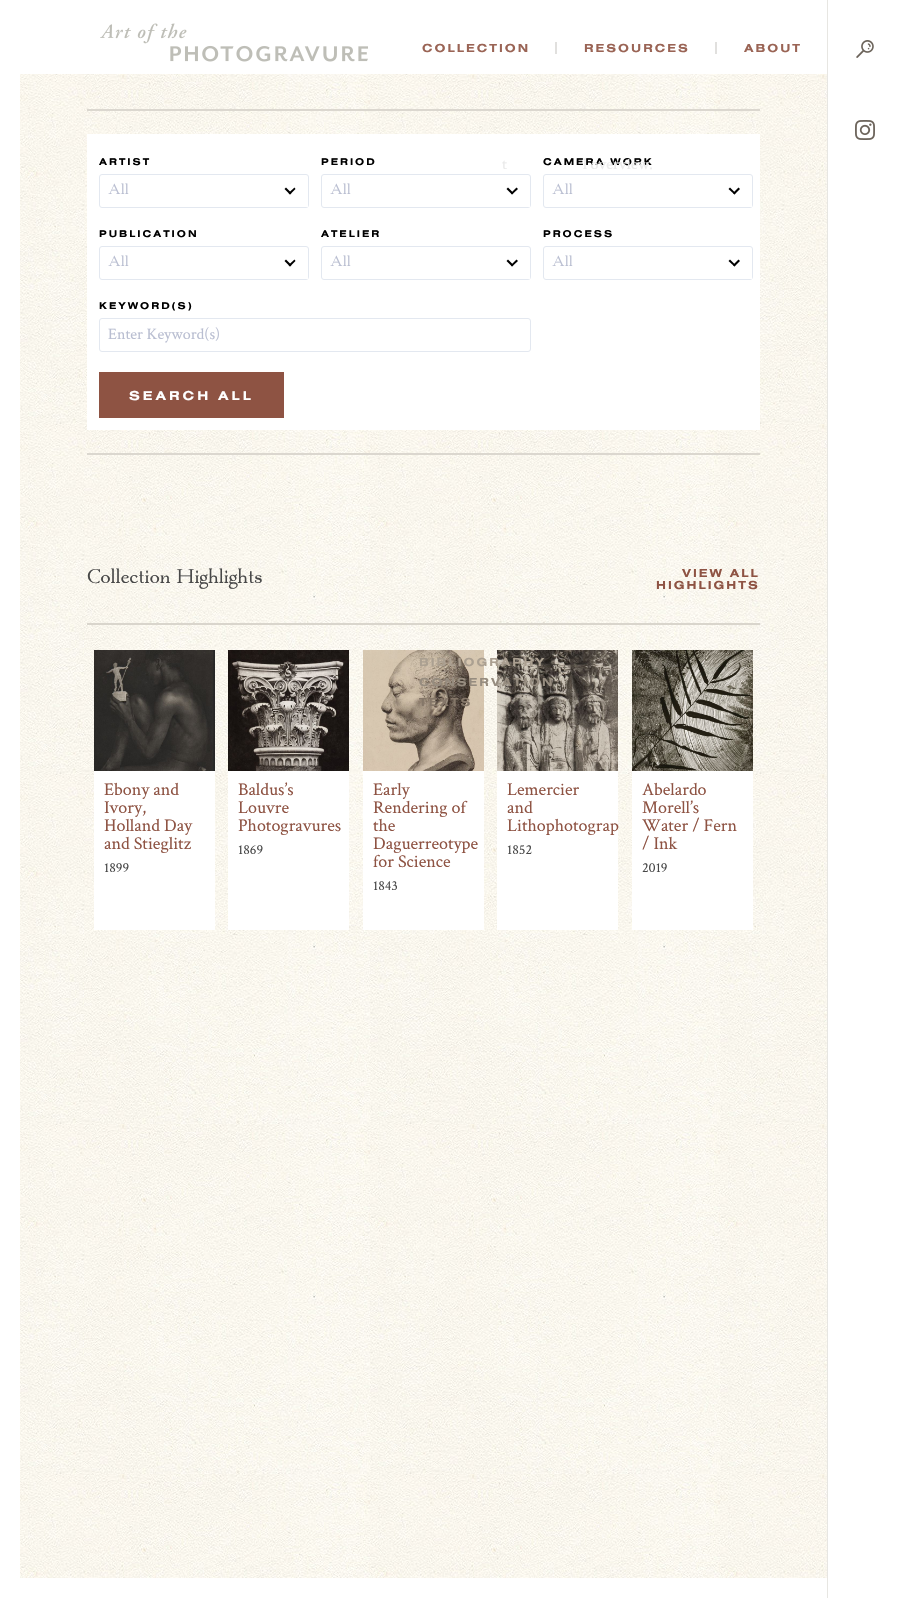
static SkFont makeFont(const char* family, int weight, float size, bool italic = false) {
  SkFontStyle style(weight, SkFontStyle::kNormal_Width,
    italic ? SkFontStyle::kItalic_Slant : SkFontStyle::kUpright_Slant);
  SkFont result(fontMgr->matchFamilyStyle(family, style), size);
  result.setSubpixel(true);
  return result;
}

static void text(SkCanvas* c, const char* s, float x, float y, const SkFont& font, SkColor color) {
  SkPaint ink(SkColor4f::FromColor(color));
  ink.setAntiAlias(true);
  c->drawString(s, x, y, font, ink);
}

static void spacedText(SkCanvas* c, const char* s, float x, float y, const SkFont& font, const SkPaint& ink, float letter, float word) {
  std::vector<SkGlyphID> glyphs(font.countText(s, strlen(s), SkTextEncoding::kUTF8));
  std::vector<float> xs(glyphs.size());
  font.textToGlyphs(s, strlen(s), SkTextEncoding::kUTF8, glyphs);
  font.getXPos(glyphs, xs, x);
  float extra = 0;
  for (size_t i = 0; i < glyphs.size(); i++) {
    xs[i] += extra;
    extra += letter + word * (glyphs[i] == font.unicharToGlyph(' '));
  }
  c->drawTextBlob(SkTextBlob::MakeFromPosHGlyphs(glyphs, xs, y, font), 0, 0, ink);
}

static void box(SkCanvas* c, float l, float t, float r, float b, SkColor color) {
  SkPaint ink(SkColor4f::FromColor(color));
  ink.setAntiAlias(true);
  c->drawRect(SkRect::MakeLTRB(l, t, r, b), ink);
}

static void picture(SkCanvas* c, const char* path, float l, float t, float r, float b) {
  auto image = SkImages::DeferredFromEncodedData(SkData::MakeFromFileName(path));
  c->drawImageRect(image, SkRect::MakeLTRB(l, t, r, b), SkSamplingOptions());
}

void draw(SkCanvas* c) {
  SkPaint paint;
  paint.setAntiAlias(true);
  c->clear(0xffffffff);
  picture(c, "img_01.png", 100, 23, 368, 62);
  SkFont face1 = makeFont("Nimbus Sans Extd", 700, 12);
  paint.setColor(0xff9a6455);
  spacedText(c, "RESOURCES", 584, 52, face1, paint, 2, 0);
  box(c, 715, 42, 717, 54, 0xffe1e0de);
  picture(c, "img_04.png", 20, 74, 827, 1578);
  picture(c, "img_07.png", 363, 650, 484, 771);
  picture(c, "img_08.png", 497, 650, 618, 771);
  paint.setColor(0xffaba091);
  spacedText(c, "BIBLIOGRAPHY", 419, 666, face1, paint, 2, 0);
  paint.setColor(0xff968c7f);
  spacedText(c, "CONSERVATION", 419, 686, face1, paint, 2, 0);
  paint.setColor(0xff857769);
  spacedText(c, "TEXTS", 419, 706, face1, paint, 2, 0);
  paint.setColor(0xff9a6455);
  spacedText(c, "COLLECTION", 422, 52, face1, paint, 2, 0);
  box(c, 555, 42, 557, 54, 0xffe1e0de);
  spacedText(c, "ABOUT", 744, 52, face1, paint, 2, 0);
  box(c, 87, 134, 760, 430, 0xffffffff);
  SkFont face2 = makeFont("Crimson Text", 400, 16);
  text(c, "t", 502, 169, face2, 0xffeaeaea);
  SkFont face3 = makeFont("Nimbus Sans Extd", 700, 10);
  paint.setColor(0xff000000);
  spacedText(c, "CAMERA WORK", 543, 165, face3, paint, 2, 0);
  text(c, "l overview.", 583, 169, face2, 0xffeaeaea);
  box(c, 827, 0, 828, 1598, 0xffe7e6e2);
  picture(c, "img_02.png", 856, 40, 874, 58);
  picture(c, "img_03.png", 855, 120, 875, 140);
  box(c, 87, 109, 760, 111, 0xffdbd7cf);
  spacedText(c, "ARTIST", 99, 165, face3, paint, 2, 0);
  paint.setStyle(SkPaint::kStroke_Style);
  paint.setStrokeWidth(1);
  paint.setColor(0xffe3e8f0);
  c->drawRoundRect(SkRect::MakeLTRB(99.5f, 174.5f, 308.5f, 207.5f), 2.5f, 2.5f, paint);
  SkFont face4 = makeFont("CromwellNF", 400, 16);
  text(c, "All", 108, 194, face4, 0xffb9bed1);
  paint.setStyle(SkPaint::kFill_Style);
  paint.setColor(0xff000000);
  c->drawPath(SkPathBuilder().moveTo(294.5f, 187.5f).lineTo(295.5f, 189).lineTo(290, 194.5f).lineTo(288.5f, 193).close().detach(), paint);
  c->drawPath(SkPathBuilder().moveTo(286, 187.5f).lineTo(291.5f, 193).lineTo(290, 194.5f).lineTo(284.5f, 189).close().detach(), paint);
  {
    const SkColor colors[] = {0x00ffffff, 0xffffffff};
    const float stops[] = {0, 0.4f};
    const SkPoint ends[] = {{288, 175}, {288, 207}};
    paint.setShader(SkGradientShader::MakeLinear(ends, colors, stops, 2, SkTileMode::kClamp));
    paint.setAlpha(255);
  }
  c->drawRect(SkRect::MakeLTRB(306, 205, 308, 207), paint);
  paint.setShader(nullptr);
  paint.setColor(0xff000000);
  spacedText(c, "PERIOD", 321, 165, face3, paint, 2, 0);
  paint.setStyle(SkPaint::kStroke_Style);
  paint.setColor(0xffe3e8f0);
  c->drawRoundRect(SkRect::MakeLTRB(321.5f, 174.5f, 530.5f, 207.5f), 2.5f, 2.5f, paint);
  text(c, "All", 330, 194, face4, 0xffb9bed1);
  paint.setStyle(SkPaint::kFill_Style);
  paint.setColor(0xff000000);
  c->drawPath(SkPathBuilder().moveTo(516.5f, 187.5f).lineTo(518, 189).lineTo(512, 194.5f).lineTo(511, 193).close().detach(), paint);
  c->drawPath(SkPathBuilder().moveTo(508, 187.5f).lineTo(513.5f, 193).lineTo(512, 194.5f).lineTo(506.5f, 189).close().detach(), paint);
  {
    const SkColor colors[] = {0x00ffffff, 0xffffffff};
    const float stops[] = {0, 0.4f};
    const SkPoint ends[] = {{510, 175}, {510, 207}};
    paint.setShader(SkGradientShader::MakeLinear(ends, colors, stops, 2, SkTileMode::kClamp));
    paint.setAlpha(255);
  }
  c->drawRect(SkRect::MakeLTRB(528, 205, 530, 207), paint);
  paint.setStyle(SkPaint::kStroke_Style);
  paint.setShader(nullptr);
  paint.setColor(0xffe3e8f0);
  c->drawRoundRect(SkRect::MakeLTRB(543.5f, 174.5f, 752.5f, 207.5f), 2.5f, 2.5f, paint);
  text(c, "All", 552, 194, face4, 0xffb9bed1);
  paint.setStyle(SkPaint::kFill_Style);
  paint.setColor(0xff000000);
  c->drawPath(SkPathBuilder().moveTo(738.5f, 187.5f).lineTo(740, 189).lineTo(734.5f, 194.5f).lineTo(733, 193).close().detach(), paint);
  c->drawPath(SkPathBuilder().moveTo(730, 187.5f).lineTo(735.5f, 193).lineTo(734.5f, 194.5f).lineTo(728.5f, 189).close().detach(), paint);
  {
    const SkColor colors[] = {0x00ffffff, 0xffffffff};
    const float stops[] = {0, 0.4f};
    const SkPoint ends[] = {{732, 175}, {732, 207}};
    paint.setShader(SkGradientShader::MakeLinear(ends, colors, stops, 2, SkTileMode::kClamp));
    paint.setAlpha(255);
  }
  c->drawRect(SkRect::MakeLTRB(750, 205, 752, 207), paint);
  paint.setShader(nullptr);
  paint.setColor(0xff000000);
  spacedText(c, "PUBLICATION", 99, 237, face3, paint, 2, 0);
  paint.setStyle(SkPaint::kStroke_Style);
  paint.setColor(0xffe3e8f0);
  c->drawRoundRect(SkRect::MakeLTRB(99.5f, 246.5f, 308.5f, 279.5f), 2.5f, 2.5f, paint);
  text(c, "All", 108, 266, face4, 0xffb9bed1);
  paint.setStyle(SkPaint::kFill_Style);
  paint.setColor(0xff000000);
  c->drawPath(SkPathBuilder().moveTo(294.5f, 259.5f).lineTo(295.5f, 261).lineTo(290, 266.5f).lineTo(288.5f, 265).close().detach(), paint);
  c->drawPath(SkPathBuilder().moveTo(286, 259.5f).lineTo(291.5f, 265).lineTo(290, 266.5f).lineTo(284.5f, 261).close().detach(), paint);
  {
    const SkColor colors[] = {0x00ffffff, 0xffffffff};
    const float stops[] = {0, 0.4f};
    const SkPoint ends[] = {{288, 247}, {288, 279}};
    paint.setShader(SkGradientShader::MakeLinear(ends, colors, stops, 2, SkTileMode::kClamp));
    paint.setAlpha(255);
  }
  c->drawRect(SkRect::MakeLTRB(306, 277, 308, 279), paint);
  paint.setShader(nullptr);
  paint.setColor(0xff000000);
  spacedText(c, "ATELIER", 321, 237, face3, paint, 2, 0);
  paint.setStyle(SkPaint::kStroke_Style);
  paint.setColor(0xffe3e8f0);
  c->drawRoundRect(SkRect::MakeLTRB(321.5f, 246.5f, 530.5f, 279.5f), 2.5f, 2.5f, paint);
  text(c, "All", 330, 266, face4, 0xffb9bed1);
  paint.setStyle(SkPaint::kFill_Style);
  paint.setColor(0xff000000);
  c->drawPath(SkPathBuilder().moveTo(516.5f, 259.5f).lineTo(518, 261).lineTo(512, 266.5f).lineTo(511, 265).close().detach(), paint);
  c->drawPath(SkPathBuilder().moveTo(508, 259.5f).lineTo(513.5f, 265).lineTo(512, 266.5f).lineTo(506.5f, 261).close().detach(), paint);
  {
    const SkColor colors[] = {0x00ffffff, 0xffffffff};
    const float stops[] = {0, 0.4f};
    const SkPoint ends[] = {{510, 247}, {510, 279}};
    paint.setShader(SkGradientShader::MakeLinear(ends, colors, stops, 2, SkTileMode::kClamp));
    paint.setAlpha(255);
  }
  c->drawRect(SkRect::MakeLTRB(528, 277, 530, 279), paint);
  paint.setShader(nullptr);
  paint.setColor(0xff000000);
  spacedText(c, "PROCESS", 543, 237, face3, paint, 2, 0);
  paint.setStyle(SkPaint::kStroke_Style);
  paint.setColor(0xffe3e8f0);
  c->drawRoundRect(SkRect::MakeLTRB(543.5f, 246.5f, 752.5f, 279.5f), 2.5f, 2.5f, paint);
  text(c, "All", 552, 266, face4, 0xffb9bed1);
  paint.setStyle(SkPaint::kFill_Style);
  paint.setColor(0xff000000);
  c->drawPath(SkPathBuilder().moveTo(738.5f, 259.5f).lineTo(740, 261).lineTo(734.5f, 266.5f).lineTo(733, 265).close().detach(), paint);
  c->drawPath(SkPathBuilder().moveTo(730, 259.5f).lineTo(735.5f, 265).lineTo(734.5f, 266.5f).lineTo(728.5f, 261).close().detach(), paint);
  {
    const SkColor colors[] = {0x00ffffff, 0xffffffff};
    const float stops[] = {0, 0.4f};
    const SkPoint ends[] = {{732, 247}, {732, 279}};
    paint.setShader(SkGradientShader::MakeLinear(ends, colors, stops, 2, SkTileMode::kClamp));
    paint.setAlpha(255);
  }
  c->drawRect(SkRect::MakeLTRB(750, 277, 752, 279), paint);
  paint.setShader(nullptr);
  paint.setColor(0xff000000);
  spacedText(c, "KEYWORD(S)", 99, 309, face3, paint, 2, 0);
  paint.setStyle(SkPaint::kStroke_Style);
  paint.setColor(0xffe3e8f0);
  c->drawRoundRect(SkRect::MakeLTRB(99.5f, 318.5f, 530.5f, 351.5f), 2.5f, 2.5f, paint);
  text(c, "Enter Keyword(s)", 108, 339, face2, 0xffb9bed1);
  box(c, 99, 372, 284, 418, 0xff8e5343);
  SkFont face5 = makeFont("Nimbus Sans Extd", 700, 13.25f);
  paint.setStyle(SkPaint::kFill_Style);
  paint.setColor(0xffffffff);
  spacedText(c, "SEARCH ALL", 129, 400, face5, paint, 3, 0);
  box(c, 87, 453, 760, 455, 0xffdbd7cf);
  SkFont face6 = makeFont("CromwellNF", 400, 22);
  paint.setColor(0xff484848);
  spacedText(c, "Collection Highlights", 87, 583, face6, paint, -0.5f, 0);
  paint.setColor(0xff8e5343);
  spacedText(c, "VIEW ALL", 682, 577, face1, paint, 2, 0);
  spacedText(c, "HIGHLIGHTS", 656, 589, face1, paint, 2, 0);
  box(c, 87, 623, 760, 625, 0xffd9d5cc);
  box(c, 94, 771, 215, 930, 0xffffffff);
  picture(c, "img_05.png", 94, 650, 215, 771);
  SkFont face7 = makeFont("Crimson Text", 400, 18);
  text(c, "Ebony and", 104, 795, face7, 0xff8e5343);
  text(c, "Ivory,", 104, 813, face7, 0xff8e5343);
  text(c, "Holland Day", 104, 831, face7, 0xff8e5343);
  text(c, "and Stieglitz", 104, 849, face7, 0xff8e5343);
  SkFont face8 = makeFont("Crimson Text", 400, 14);
  text(c, "1899", 104, 872, face8, 0xff484848);
  box(c, 228, 771, 349, 930, 0xffffffff);
  picture(c, "img_06.png", 228, 650, 349, 771);
  text(c, "Baldus’s", 238, 795, face7, 0xff8e5343);
  text(c, "Louvre", 238, 813, face7, 0xff8e5343);
  text(c, "Photogravures", 238, 831, face7, 0xff8e5343);
  text(c, "1869", 238, 854, face8, 0xff484848);
  box(c, 363, 771, 484, 930, 0xffffffff);
  text(c, "Early", 373, 795, face7, 0xff8e5343);
  text(c, "Rendering of", 373, 813, face7, 0xff8e5343);
  text(c, "the", 373, 831, face7, 0xff8e5343);
  text(c, "Daguerreotype", 373, 849, face7, 0xff8e5343);
  text(c, "for Science", 373, 867, face7, 0xff8e5343);
  text(c, "1843", 373, 890, face8, 0xff484848);
  box(c, 497, 771, 618, 930, 0xffffffff);
  text(c, "Lemercier", 507, 795, face7, 0xff8e5343);
  text(c, "and", 507, 813, face7, 0xff8e5343);
  text(c, "Lithophotograp", 507, 831, face7, 0xff8e5343);
  text(c, "1852", 507, 854, face8, 0xff484848);
  box(c, 632, 771, 753, 930, 0xffffffff);
  picture(c, "img_09.png", 632, 650, 753, 771);
  text(c, "Abelardo", 642, 795, face7, 0xff8e5343);
  text(c, "Morell’s", 642, 813, face7, 0xff8e5343);
  text(c, "Water / Fern", 642, 831, face7, 0xff8e5343);
  text(c, "/ Ink", 642, 849, face7, 0xff8e5343);
  text(c, "2019", 642, 872, face8, 0xff484848);
}
